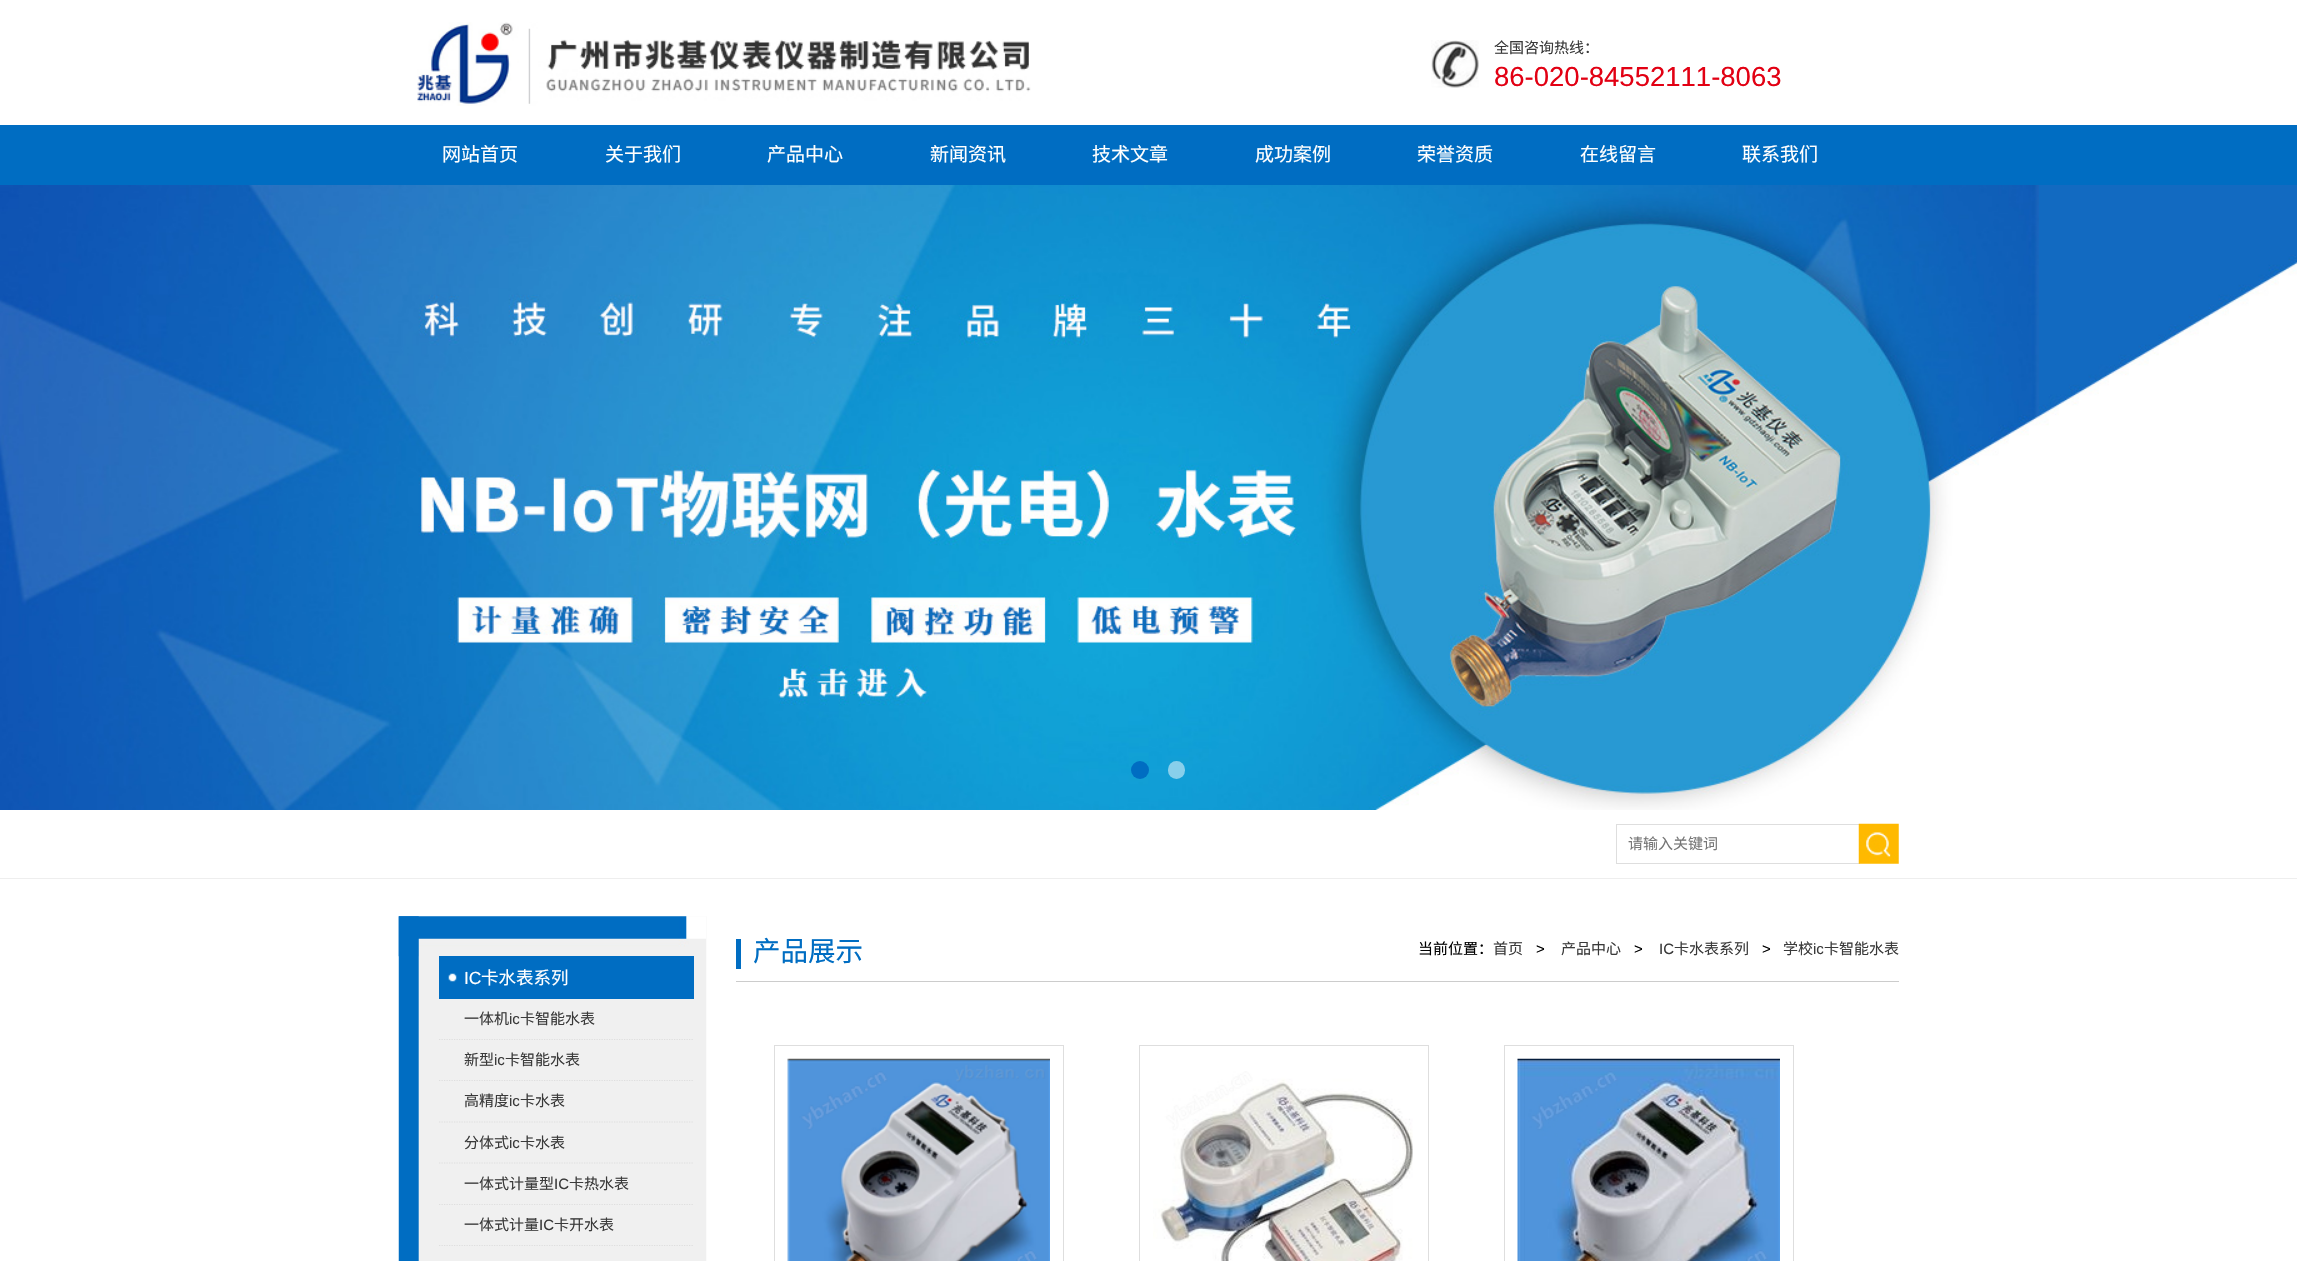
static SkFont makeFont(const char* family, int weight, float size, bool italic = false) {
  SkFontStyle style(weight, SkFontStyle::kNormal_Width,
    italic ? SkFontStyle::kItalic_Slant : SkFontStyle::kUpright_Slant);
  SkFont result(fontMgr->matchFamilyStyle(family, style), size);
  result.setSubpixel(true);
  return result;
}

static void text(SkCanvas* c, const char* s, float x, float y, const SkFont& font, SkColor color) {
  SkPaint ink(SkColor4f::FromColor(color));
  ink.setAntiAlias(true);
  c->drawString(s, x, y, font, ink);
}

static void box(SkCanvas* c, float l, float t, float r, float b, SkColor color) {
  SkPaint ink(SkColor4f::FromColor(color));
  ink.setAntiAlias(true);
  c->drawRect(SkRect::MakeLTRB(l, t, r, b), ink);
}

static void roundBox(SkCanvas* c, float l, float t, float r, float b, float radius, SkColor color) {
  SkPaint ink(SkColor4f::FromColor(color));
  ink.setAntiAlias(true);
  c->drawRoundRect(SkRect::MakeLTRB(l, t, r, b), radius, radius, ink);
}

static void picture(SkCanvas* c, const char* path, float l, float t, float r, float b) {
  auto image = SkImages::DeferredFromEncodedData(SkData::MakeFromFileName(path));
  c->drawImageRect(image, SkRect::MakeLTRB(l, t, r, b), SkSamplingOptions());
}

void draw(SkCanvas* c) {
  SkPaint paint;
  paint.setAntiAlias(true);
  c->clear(0xffffffff);
  picture(c, "img_01.png", 417, 22, 1031, 106);
  picture(c, "img_02.png", 1431, 40, 1479, 88);
  SkFont face1 = makeFont("Noto Sans CJK SC", 400, 15);
  text(c, "全国咨询热线：", 1494, 53, face1, 0xff3a3a3a);
  SkFont face2 = makeFont("Liberation Sans", 400, 27.5f);
  text(c, "86-020-84552111-8063", 1494, 86, face2, 0xffe20013);
  box(c, 0, 125, 2297, 185, 0xff006dc2);
  SkFont face3 = makeFont("Noto Sans CJK SC", 400, 19);
  text(c, "网站首页", 442, 161, face3, 0xffffffff);
  text(c, "关于我们", 605, 161, face3, 0xffffffff);
  text(c, "产品中心", 767, 161, face3, 0xffffffff);
  text(c, "新闻资讯", 930, 161, face3, 0xffffffff);
  text(c, "技术文章", 1092, 161, face3, 0xffffffff);
  text(c, "成功案例", 1255, 161, face3, 0xffffffff);
  text(c, "荣誉资质", 1417, 161, face3, 0xffffffff);
  text(c, "在线留言", 1580, 161, face3, 0xffffffff);
  text(c, "联系我们", 1742, 161, face3, 0xffffffff);
  picture(c, "img_03.png", 0, 185, 2297, 810);
  paint.setColor(0xff006dc2);
  c->drawCircle(1140, 770, 9, paint);
  roundBox(c, 1168, 761, 1185, 779, 8.5f, 0x80ffffff);
  box(c, 0, 878, 2297, 879, 0xffeeeeee);
  paint.setStyle(SkPaint::kStroke_Style);
  paint.setStrokeWidth(1);
  paint.setColor(0xffdedede);
  c->drawRect(SkRect::MakeLTRB(1616.5f, 824.5f, 1859.5f, 863.5f), paint);
  text(c, "请输入关键词", 1628, 849, face1, 0xff757575);
  picture(c, "img_04.png", 1858, 823, 1899, 864);
  box(c, 736, 981, 1899, 982, 0xffcccccc);
  box(c, 736, 939, 741, 969, 0xff006dc2);
  SkFont face4 = makeFont("Noto Sans CJK SC", 400, 27.5f);
  text(c, "产品展示", 753, 961, face4, 0xff006dc2);
  text(c, "当前位置：", 1418, 954, face1, 0xff000000);
  text(c, "首页", 1493, 954, face1, 0xff3a3a3a);
  SkFont face5 = makeFont("Liberation Sans", 400, 15);
  text(c, ">", 1536, 954, face5, 0xff000000);
  text(c, "产品中心", 1561, 954, face1, 0xff3a3a3a);
  text(c, ">", 1634, 954, face5, 0xff000000);
  text(c, "IC", 1659, 954, face5, 0xff3a3a3a);
  text(c, "卡水表系列", 1674, 954, face1, 0xff3a3a3a);
  text(c, ">", 1762, 954, face5, 0xff000000);
  text(c, "学校", 1783, 954, face1, 0xff3a3a3a);
  text(c, "ic", 1813, 954, face5, 0xff3a3a3a);
  text(c, "卡智能水表", 1824, 954, face1, 0xff3a3a3a);
  c->drawRect(SkRect::MakeLTRB(774.5f, 1045.5f, 1063.5f, 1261.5f), paint);
  picture(c, "img_05.png", 787, 1058, 1050, 1261);
  c->drawRect(SkRect::MakeLTRB(1139.5f, 1045.5f, 1428.5f, 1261.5f), paint);
  picture(c, "img_06.png", 1153, 1071, 1413, 1261);
  c->drawRect(SkRect::MakeLTRB(1504.5f, 1045.5f, 1793.5f, 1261.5f), paint);
  picture(c, "img_07.png", 1517, 1058, 1780, 1261);
  picture(c, "img_08.png", 398, 916, 707, 1261);
  picture(c, "img_09.png", 398, 916, 706, 957);
  box(c, 439, 956, 694, 999, 0xff006dc2);
  picture(c, "img_10.png", 448, 973, 457, 982);
  SkFont face6 = makeFont("Liberation Sans", 400, 17.5f);
  text(c, "IC", 464, 984, face6, 0xffffffff);
  SkFont face7 = makeFont("Noto Sans CJK SC", 400, 17.5f);
  text(c, "卡水表系列", 481, 984, face7, 0xffffffff);
  paint.setStrokeWidth(1.2f);
  paint.setPathEffect(SkDashPathEffect::Make({{1.25f, 1.25f}}, 0));
  c->drawPath(SkPathBuilder().moveTo(439, 1039.5f).lineTo(694, 1039.5f).detach(), paint);
  paint.setPathEffect(nullptr);
  text(c, "一体机", 464, 1024, face1, 0xff3a3a3a);
  text(c, "ic", 509, 1024, face5, 0xff3a3a3a);
  text(c, "卡智能水表", 520, 1024, face1, 0xff3a3a3a);
  paint.setPathEffect(SkDashPathEffect::Make({{1.25f, 1.25f}}, 0));
  c->drawPath(SkPathBuilder().moveTo(439, 1080.5f).lineTo(694, 1080.5f).detach(), paint);
  paint.setPathEffect(nullptr);
  text(c, "新型", 464, 1065, face1, 0xff3a3a3a);
  text(c, "ic", 494, 1065, face5, 0xff3a3a3a);
  text(c, "卡智能水表", 505, 1065, face1, 0xff3a3a3a);
  paint.setPathEffect(SkDashPathEffect::Make({{1.25f, 1.25f}}, 0));
  c->drawPath(SkPathBuilder().moveTo(439, 1122).lineTo(694, 1122).detach(), paint);
  paint.setPathEffect(nullptr);
  text(c, "高精度", 464, 1106, face1, 0xff3a3a3a);
  text(c, "ic", 509, 1106, face5, 0xff3a3a3a);
  text(c, "卡水表", 520, 1106, face1, 0xff3a3a3a);
  paint.setPathEffect(SkDashPathEffect::Make({{1.25f, 1.25f}}, 0));
  c->drawPath(SkPathBuilder().moveTo(439, 1163).lineTo(694, 1163).detach(), paint);
  paint.setPathEffect(nullptr);
  text(c, "分体式", 464, 1148, face1, 0xff3a3a3a);
  text(c, "ic", 509, 1148, face5, 0xff3a3a3a);
  text(c, "卡水表", 520, 1148, face1, 0xff3a3a3a);
  paint.setPathEffect(SkDashPathEffect::Make({{1.25f, 1.25f}}, 0));
  c->drawPath(SkPathBuilder().moveTo(439, 1204.5f).lineTo(694, 1204.5f).detach(), paint);
  paint.setPathEffect(nullptr);
  text(c, "一体式计量型", 464, 1189, face1, 0xff3a3a3a);
  text(c, "IC", 554, 1189, face5, 0xff3a3a3a);
  text(c, "卡热水表", 569, 1189, face1, 0xff3a3a3a);
  paint.setPathEffect(SkDashPathEffect::Make({{1.25f, 1.25f}}, 0));
  c->drawPath(SkPathBuilder().moveTo(439, 1245.5f).lineTo(694, 1245.5f).detach(), paint);
  paint.setPathEffect(nullptr);
  text(c, "一体式计量", 464, 1230, face1, 0xff3a3a3a);
  text(c, "IC", 539, 1230, face5, 0xff3a3a3a);
  text(c, "卡开水表", 554, 1230, face1, 0xff3a3a3a);
}
